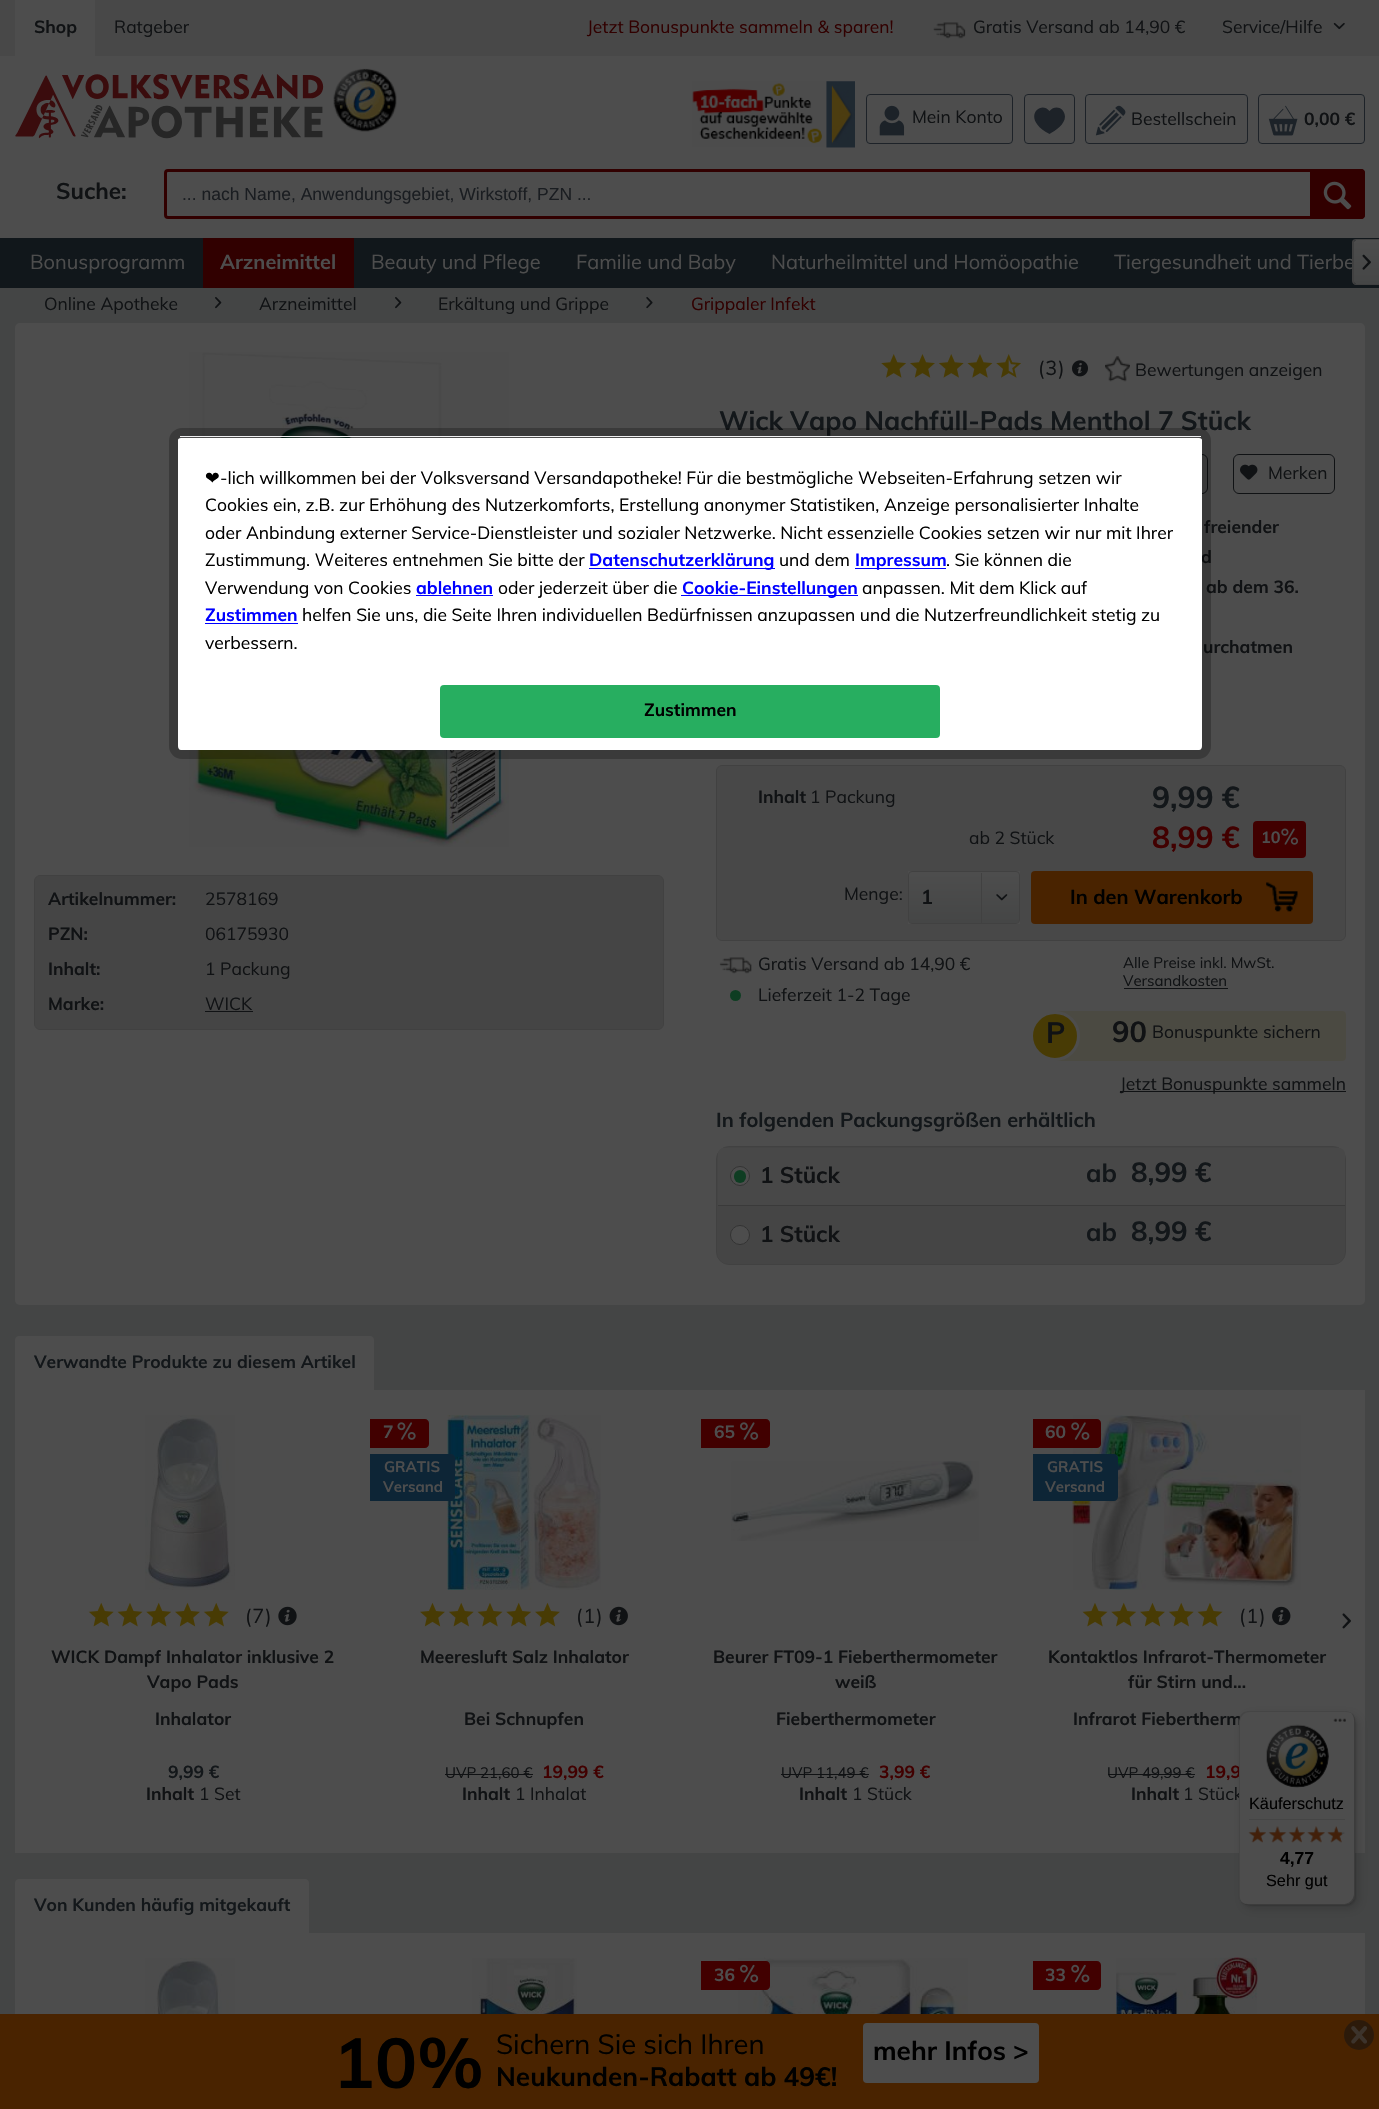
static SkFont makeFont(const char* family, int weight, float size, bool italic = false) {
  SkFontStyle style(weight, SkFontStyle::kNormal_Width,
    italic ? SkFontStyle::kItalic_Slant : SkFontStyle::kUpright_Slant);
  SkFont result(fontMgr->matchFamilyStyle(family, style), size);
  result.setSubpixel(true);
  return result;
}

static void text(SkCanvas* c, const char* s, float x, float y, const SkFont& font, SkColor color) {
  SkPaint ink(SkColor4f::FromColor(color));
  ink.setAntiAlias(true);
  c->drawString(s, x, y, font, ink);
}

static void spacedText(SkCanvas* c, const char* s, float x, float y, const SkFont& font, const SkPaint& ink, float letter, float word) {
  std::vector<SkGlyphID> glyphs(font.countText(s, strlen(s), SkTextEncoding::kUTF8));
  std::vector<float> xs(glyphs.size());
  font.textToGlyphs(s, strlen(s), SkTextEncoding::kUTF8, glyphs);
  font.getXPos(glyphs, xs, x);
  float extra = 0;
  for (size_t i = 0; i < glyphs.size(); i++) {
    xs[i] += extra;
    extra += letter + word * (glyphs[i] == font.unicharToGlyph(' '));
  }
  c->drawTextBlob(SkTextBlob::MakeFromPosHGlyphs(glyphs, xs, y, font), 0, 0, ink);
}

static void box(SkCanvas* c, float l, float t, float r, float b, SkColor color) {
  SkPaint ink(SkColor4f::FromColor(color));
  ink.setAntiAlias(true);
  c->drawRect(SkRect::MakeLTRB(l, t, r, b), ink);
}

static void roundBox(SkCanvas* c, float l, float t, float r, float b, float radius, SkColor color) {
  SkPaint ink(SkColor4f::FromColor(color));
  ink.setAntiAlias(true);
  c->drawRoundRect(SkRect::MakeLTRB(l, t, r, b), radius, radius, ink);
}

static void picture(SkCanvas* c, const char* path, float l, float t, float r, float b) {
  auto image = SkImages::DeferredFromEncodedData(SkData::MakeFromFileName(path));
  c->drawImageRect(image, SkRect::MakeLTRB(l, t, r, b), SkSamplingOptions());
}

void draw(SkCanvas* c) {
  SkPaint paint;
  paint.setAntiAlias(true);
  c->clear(0xff444545);
  box(c, 0, 56, 1379, 238, 0xff4d4d4d);
  box(c, 0, 0, 1379, 56, 0xff484848);
  box(c, 15, 0, 95, 56, 0xff4d4d4d);
  SkFont face1 = makeFont("Muli", 700, 17.5f);
  text(c, "Shop", 34, 33, face1, 0xff101214);
  SkFont face2 = makeFont("Muli", 400, 17.5f);
  text(c, "Ratgeber", 114, 33, face2, 0xff101214);
  text(c, "Jetzt Bonuspunkte sammeln & sparen!", 587, 33, face2, 0xff310000);
  picture(c, "img_01.png", 933, 22, 966, 39);
  text(c, "Gratis Versand ab 14,90 €", 973, 33, face2, 0xff101214);
  text(c, "Service/Hilfe", 1222, 33, face2, 0xff101214);
  picture(c, "img_02.png", 1333, 22, 1345, 30);
  picture(c, "img_03.png", 15, 74, 324, 139);
  picture(c, "img_04.png", 333, 68, 397, 132);
  picture(c, "img_05.png", 692, 81, 855, 148);
  paint.setStyle(SkPaint::kStroke_Style);
  paint.setStrokeWidth(1);
  paint.setColor(0xff1d2228);
  c->drawRoundRect(SkRect::MakeLTRB(866.5f, 94.5f, 1012.5f, 143.5f), 3.5f, 3.5f, paint);
  picture(c, "img_06.png", 879, 105, 905, 136);
  text(c, "Mein Konto", 912, 123, face2, 0xff101214);
  c->drawRoundRect(SkRect::MakeLTRB(1024.5f, 94.5f, 1074.5f, 143.5f), 3.5f, 3.5f, paint);
  paint.setStyle(SkPaint::kFill_Style);
  c->drawPath(SkPathBuilder().moveTo(1065, 116.5f).cubicTo(1064.5f, 107.5f, 1055, 104.5f, 1049.5f, 111).cubicTo(1040, 99.5f, 1020.5f, 119, 1049.5f, 134).cubicTo(1055.5f, 130.5f, 1065, 124.5f, 1065, 116.5f).detach(), paint);
  paint.setStyle(SkPaint::kStroke_Style);
  c->drawRoundRect(SkRect::MakeLTRB(1085.5f, 94.5f, 1247.5f, 143.5f), 3.5f, 3.5f, paint);
  picture(c, "img_07.png", 1095, 105, 1126, 136);
  text(c, "Bestellschein", 1131, 125, face2, 0xff101214);
  c->drawRoundRect(SkRect::MakeLTRB(1258.5f, 94.5f, 1364.5f, 143.5f), 3.5f, 3.5f, paint);
  picture(c, "img_08.png", 1268, 105, 1298, 136);
  text(c, "0,00 €", 1304, 125, face1, 0xff101214);
  SkFont face3 = makeFont("Muli", 700, 22.5f);
  text(c, "Suche:", 56, 199, face3, 0xff101214);
  paint.setStrokeWidth(3);
  paint.setColor(0xff310000);
  c->drawRoundRect(SkRect::MakeLTRB(165.5f, 170.5f, 1363.5f, 217.5f), 2.5f, 2.5f, paint);
  SkFont face4 = makeFont("Liberation Sans", 400, 17.5f);
  text(c, "... nach Name, Anwendungsgebiet, Wirkstoff, PZN ...", 182, 200, face4, 0xff1a1d21);
  paint.setStyle(SkPaint::kFill_Style);
  c->drawPath(SkPathBuilder().moveTo(1310, 169).lineTo(1361, 169).cubicTo(1363, 169, 1365, 171, 1365, 173).lineTo(1365, 215).cubicTo(1365, 217, 1363, 219, 1361, 219).lineTo(1310, 219).close().detach(), paint);
  picture(c, "img_09.png", 1323, 181, 1352, 210);
  box(c, 0, 238, 1379, 288, 0xff11171b);
  SkFont face5 = makeFont("Muli", 400, 20);
  text(c, "Bonusprogramm", 30, 269, face5, 0xff4d4d4d);
  box(c, 203, 238, 354, 288, 0xff310000);
  SkFont face6 = makeFont("Muli", 700, 20);
  text(c, "Arzneimittel", 220, 269, face6, 0xff4d4d4d);
  text(c, "Beauty und Pflege", 371, 269, face5, 0xff4d4d4d);
  text(c, "Familie und Baby", 576, 269, face5, 0xff4d4d4d);
  text(c, "Naturheilmittel und Homöopathie", 771, 269, face5, 0xff4d4d4d);
  text(c, "Tiergesundheit und Tierbe", 1114, 269, face5, 0xff4d4d4d);
  {
    const SkColor colors[] = {0xff4d4d4d, 0xff454646};
    const float stops[] = {0, 1};
    const SkPoint ends[] = {{1367, 240}, {1367, 284}};
    paint.setShader(SkGradientShader::MakeLinear(ends, colors, stops, 2, SkTileMode::kClamp));
    paint.setAlpha(255);
  }
  c->drawPath(SkPathBuilder().moveTo(1356.5f, 240).lineTo(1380, 240).lineTo(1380, 284).lineTo(1356.5f, 284).cubicTo(1355, 284, 1354, 283, 1354, 281.5f).lineTo(1354, 242.5f).cubicTo(1354, 241, 1355, 240, 1356.5f, 240).close().detach(), paint);
  paint.setShader(nullptr);
  paint.setColor(0xff414141);
  c->drawPath(SkPathBuilder(SkPathFillType::kEvenOdd).moveTo(1356, 239).lineTo(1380, 239).lineTo(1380, 285).lineTo(1356, 285).cubicTo(1354, 285, 1352, 283, 1352, 281).lineTo(1352, 242).cubicTo(1352, 240, 1354, 239, 1356, 239).close().moveTo(1356, 240).lineTo(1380, 240).lineTo(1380, 284).lineTo(1356, 284).cubicTo(1355, 284, 1354, 283, 1354, 281).lineTo(1354, 242).cubicTo(1354, 241, 1355, 240, 1356, 240).close().detach(), paint);
  picture(c, "img_10.png", 1362, 254, 1371, 270);
  text(c, "Online Apotheke", 44, 310, face2, 0xff101214);
  picture(c, "img_11.png", 215, 297, 222, 309);
  text(c, "Arzneimittel", 259, 310, face2, 0xff101214);
  picture(c, "img_11.png", 395, 297, 402, 309);
  text(c, "Erkältung und Grippe", 438, 310, face2, 0xff101214);
  picture(c, "img_12.png", 646, 297, 653, 309);
  text(c, "Grippaler Infekt", 691, 310, face2, 0xff310000);
  roundBox(c, 15, 323, 1365, 1305, 5, 0xff4d4d4d);
  picture(c, "img_13.png", 881, 354, 906, 378);
  picture(c, "img_14.png", 910, 354, 935, 378);
  picture(c, "img_15.png", 938, 354, 964, 378);
  picture(c, "img_16.png", 967, 354, 993, 378);
  picture(c, "img_17.png", 996, 354, 1021, 378);
  paint.setColor(0xff101214);
  spacedText(c, "(3)", 1038, 375, face5, paint, 1, 0);
  picture(c, "img_18.png", 1072, 360, 1088, 377);
  picture(c, "img_19.png", 1105, 356, 1130, 382);
  text(c, "Bewertungen anzeigen", 1135, 376, face2, 0xff101214);
  SkFont face7 = makeFont("Muli", 700, 26.25f);
  text(c, "Wick Vapo Nachfüll-Pads Menthol 7 Stück", 719, 430, face7, 0xff13171a);
  paint.setStyle(SkPaint::kStroke_Style);
  paint.setStrokeWidth(1);
  c->drawRoundRect(SkRect::MakeLTRB(1119.5f, 454.5f, 1207.5f, 493.5f), 5.5f, 5.5f, paint);
  c->drawRoundRect(SkRect::MakeLTRB(1233.5f, 454.5f, 1334.5f, 493.5f), 5.5f, 5.5f, paint);
  picture(c, "img_20.png", 1240, 464, 1258, 480);
  text(c, "Merken", 1268, 479, face2, 0xff101214);
  text(c, "freiender", 1204, 533, face1, 0xff101214);
  text(c, "d", 1201, 563, face1, 0xff101214);
  text(c, "ab dem 36.", 1206, 593, face1, 0xff101214);
  text(c, "urchatmen", 1203, 653, face1, 0xff101214);
  picture(c, "img_21.png", 188, 352, 509, 847);
  paint.setStyle(SkPaint::kFill_Style);
  paint.setColor(0xff454545);
  c->drawRoundRect(SkRect::MakeLTRB(34.5f, 875.5f, 663.5f, 1029.5f), 5.5f, 5.5f, paint);
  paint.setStyle(SkPaint::kStroke_Style);
  paint.setColor(0xff414141);
  c->drawRoundRect(SkRect::MakeLTRB(34.5f, 875.5f, 663.5f, 1029.5f), 5.5f, 5.5f, paint);
  text(c, "Artikelnummer:", 48, 905, face1, 0xff101214);
  text(c, "2578169", 205, 905, face2, 0xff101214);
  text(c, "PZN:", 48, 940, face1, 0xff101214);
  text(c, "06175930", 205, 940, face2, 0xff101214);
  text(c, "Inhalt:", 48, 975, face1, 0xff101214);
  text(c, "1 Packung", 205, 975, face2, 0xff101214);
  text(c, "Marke:", 48, 1010, face1, 0xff101214);
  text(c, "WICK", 205, 1010, face2, 0xff101214);
  box(c, 205, 1011, 253, 1012, 0xff101214);
  paint.setStyle(SkPaint::kFill_Style);
  paint.setColor(0xff484848);
  c->drawRoundRect(SkRect::MakeLTRB(716.5f, 765.5f, 1345.5f, 940.5f), 5.5f, 5.5f, paint);
  paint.setStyle(SkPaint::kStroke_Style);
  paint.setColor(0xff414141);
  c->drawRoundRect(SkRect::MakeLTRB(716.5f, 765.5f, 1345.5f, 940.5f), 5.5f, 5.5f, paint);
  text(c, "Inhalt", 758, 803, face1, 0xff101214);
  text(c, "1 Packung", 810, 803, face2, 0xff101214);
  SkFont face8 = makeFont("Muli", 700, 30);
  text(c, "9,99 €", 1152, 808, face8, 0xff13171a);
  text(c, "ab 2 Stück", 969, 844, face2, 0xff101214);
  text(c, "8,99 €", 1152, 848, face8, 0xff410000);
  roundBox(c, 1253, 821, 1306, 858, 4, 0xff410000);
  SkFont face9 = makeFont("Muli", 700, 16.25f);
  text(c, "10", 1261, 843, face9, 0xff4d4d4d);
  picture(c, "img_22.png", 1281, 828, 1298, 845);
  text(c, "Menge:", 844, 900, face2, 0xff101214);
  box(c, 908, 871, 1020, 924, 0xff4d4d4d);
  paint.setStyle(SkPaint::kFill_Style);
  {
    const SkColor colors[] = {0xff4d4d4d, 0xff454646};
    const float stops[] = {0, 1};
    const SkPoint ends[] = {{964, 873}, {964, 923}};
    paint.setShader(SkGradientShader::MakeLinear(ends, colors, stops, 2, SkTileMode::kClamp));
    paint.setAlpha(255);
  }
  c->drawRoundRect(SkRect::MakeLTRB(909, 873, 1019, 923), 2.5f, 2.5f, paint);
  paint.setStyle(SkPaint::kStroke_Style);
  paint.setShader(nullptr);
  paint.setColor(0xff414141);
  c->drawRoundRect(SkRect::MakeLTRB(908.5f, 871.5f, 1019.5f, 923.5f), 3.5f, 3.5f, paint);
  text(c, "1", 921, 904, face6, 0xff101214);
  box(c, 981, 873, 982, 923, 0xff414141);
  picture(c, "img_23.png", 996, 894, 1008, 901);
  roundBox(c, 1031, 871, 1313, 924, 4, 0xff492300);
  text(c, "In den Warenkorb", 1070, 904, face6, 0xff000000);
  picture(c, "img_24.png", 1266, 882, 1298, 912);
  picture(c, "img_25.png", 719, 957, 752, 974);
  text(c, "Gratis Versand ab 14,90 €", 758, 970, face2, 0xff101214);
  paint.setStyle(SkPaint::kFill_Style);
  paint.setColor(0xff0e3d22);
  c->drawCircle(735.5f, 995.5f, 5.5f, paint);
  text(c, "Lieferzeit 1-2 Tage", 758, 1001, face2, 0xff101214);
  SkFont face10 = makeFont("Muli", 400, 15);
  text(c, "Alle Preise inkl. MwSt.", 1123, 968, face10, 0xff101214);
  text(c, "Versandkosten", 1123, 986, face10, 0xff101214);
  box(c, 1124, 988, 1228, 989, 0xff101214);
  roundBox(c, 1055, 1011, 1346, 1061, 4, 0xff4b4a42);
  paint.setColor(0xff483b05);
  c->drawCircle(1055, 1036, 23.5f, paint);
  paint.setStyle(SkPaint::kStroke_Style);
  paint.setStrokeWidth(3);
  paint.setColor(0xff4d4d4d);
  c->drawCircle(1055, 1036, 23.5f, paint);
  SkFont face11 = makeFont("Muli", 700, 29);
  text(c, "P", 1046, 1043, face11, 0xff101214);
  text(c, "90", 1112, 1042, face11, 0xff101214);
  text(c, "Bonuspunkte sichern", 1152, 1038, face2, 0xff101214);
  box(c, 1120, 1091, 1346, 1092, 0xff101214);
  text(c, "Jetzt Bonuspunkte sammeln", 1120, 1090, face2, 0xff101214);
  text(c, "In folgenden Packungsgrößen erhältlich", 716, 1127, face6, 0xff13171a);
  paint.setStyle(SkPaint::kFill_Style);
  paint.setColor(0xff454545);
  c->drawRoundRect(SkRect::MakeLTRB(716.5f, 1146.5f, 1345.5f, 1264.5f), 12.5f, 12.5f, paint);
  paint.setStyle(SkPaint::kStroke_Style);
  paint.setStrokeWidth(1);
  paint.setColor(0xff414141);
  c->drawRoundRect(SkRect::MakeLTRB(716.5f, 1146.5f, 1345.5f, 1264.5f), 12.5f, 12.5f, paint);
  paint.setStyle(SkPaint::kFill_Style);
  paint.setColor(0xff484848);
  c->drawPath(SkPathBuilder().moveTo(724, 1148).lineTo(1339, 1148).cubicTo(1342.5f, 1148, 1345, 1150.5f, 1345, 1154).lineTo(1345, 1206).lineTo(718, 1206).lineTo(718, 1154).cubicTo(718, 1150.5f, 720.5f, 1148, 724, 1148).close().detach(), paint);
  box(c, 718, 1205, 1345, 1206, 0xff3a3a3a);
  paint.setColor(0xff4d4d4d);
  c->drawCircle(740, 1176, 9.5f, paint);
  paint.setStyle(SkPaint::kStroke_Style);
  paint.setColor(0xff323232);
  c->drawCircle(740, 1176, 9.5f, paint);
  roundBox(c, 734, 1170, 746, 1183, 6, 0xff0e3d22);
  text(c, "1 Stück", 760, 1183, face3, 0xff101214);
  SkFont face12 = makeFont("Muli", 700, 25);
  text(c, "ab", 1086, 1182, face12, 0xff13171a);
  SkFont face13 = makeFont("Muli", 700, 27.5f);
  text(c, "8,99 €", 1131, 1182, face13, 0xff13171a);
  paint.setStyle(SkPaint::kFill_Style);
  paint.setColor(0xff4d4d4d);
  c->drawCircle(740, 1235, 9.5f, paint);
  paint.setStyle(SkPaint::kStroke_Style);
  paint.setColor(0xff323232);
  c->drawCircle(740, 1235, 9.5f, paint);
  text(c, "1 Stück", 760, 1242, face3, 0xff101214);
  text(c, "ab", 1086, 1241, face12, 0xff13171a);
  text(c, "8,99 €", 1131, 1241, face13, 0xff13171a);
  box(c, 15, 1390, 1365, 1853, 0xff4d4d4d);
  paint.setStyle(SkPaint::kFill_Style);
  paint.setColor(0xff4d4d4d);
  c->drawPath(SkPathBuilder().moveTo(19, 1336).lineTo(370, 1336).cubicTo(372, 1336, 374, 1338, 374, 1340).lineTo(374, 1391).lineTo(15, 1391).lineTo(15, 1340).cubicTo(15, 1338, 17, 1336, 19, 1336).close().detach(), paint);
  text(c, "Verwandte Produkte zu diesem Artikel", 34, 1368, face1, 0xff13171a);
  picture(c, "img_26.png", 145, 1415, 235, 1590);
  picture(c, "img_27.png", 88, 1602, 114, 1627);
  picture(c, "img_28.png", 117, 1603, 143, 1627);
  picture(c, "img_29.png", 146, 1602, 172, 1627);
  picture(c, "img_30.png", 175, 1602, 200, 1627);
  picture(c, "img_27.png", 203, 1602, 229, 1627);
  paint.setColor(0xff101214);
  spacedText(c, "(7)", 245, 1623, face5, paint, 1, 0);
  picture(c, "img_31.png", 278, 1606, 297, 1626);
  text(c, "WICK Dampf Inhalator inklusive 2", 51, 1663, face1, 0xff101214);
  text(c, "Vapo Pads", 147, 1688, face1, 0xff101214);
  text(c, "Inhalator", 155, 1725, face1, 0xff101214);
  text(c, "9,99 €", 168, 1778, face1, 0xff13171a);
  text(c, "Inhalt", 146, 1800, face1, 0xff101214);
  text(c, "1 Set", 199, 1800, face2, 0xff101214);
  paint.setColor(0xff410000);
  c->drawPath(SkPathBuilder().moveTo(370, 1419).lineTo(425, 1419).cubicTo(427, 1419, 429, 1421, 429, 1423).lineTo(429, 1444).cubicTo(429, 1446, 427, 1448, 425, 1448).lineTo(370, 1448).close().detach(), paint);
  text(c, "7", 383, 1438, face1, 0xff4d4d4d);
  picture(c, "img_32.png", 397, 1422, 416, 1440);
  picture(c, "img_33.png", 447, 1415, 601, 1590);
  paint.setColor(0xff0d2536);
  c->drawPath(SkPathBuilder().moveTo(370, 1454).lineTo(451, 1454).cubicTo(453, 1454, 455, 1456, 455, 1458).lineTo(455, 1497).cubicTo(455, 1499, 453, 1501, 451, 1501).lineTo(370, 1501).close().detach(), paint);
  SkFont face14 = makeFont("Muli", 700, 15);
  text(c, "GRATIS", 384, 1472, face14, 0xff4d4d4d);
  text(c, "Versand", 383, 1492, face14, 0xff4d4d4d);
  picture(c, "img_30.png", 420, 1602, 445, 1627);
  picture(c, "img_27.png", 448, 1602, 474, 1627);
  picture(c, "img_28.png", 477, 1603, 503, 1627);
  picture(c, "img_29.png", 506, 1602, 532, 1627);
  picture(c, "img_30.png", 535, 1602, 560, 1627);
  paint.setColor(0xff101214);
  spacedText(c, "(1)", 576, 1623, face5, paint, 1, 0);
  picture(c, "img_34.png", 609, 1606, 628, 1626);
  text(c, "Meeresluft Salz Inhalator", 420, 1663, face1, 0xff101214);
  text(c, "Bei Schnupfen", 464, 1725, face1, 0xff101214);
  text(c, "UVP 21,60 €", 445, 1778, face10, 0xff101214);
  box(c, 445, 1774, 533, 1775, 0xff101214);
  text(c, "19,99 €", 542, 1778, face1, 0xff410000);
  text(c, "Inhalt", 462, 1800, face1, 0xff101214);
  text(c, "1 Inhalat", 515, 1800, face2, 0xff101214);
  paint.setColor(0xff410000);
  c->drawPath(SkPathBuilder().moveTo(701, 1419).lineTo(766, 1419).cubicTo(768, 1419, 770, 1421, 770, 1423).lineTo(770, 1444).cubicTo(770, 1446, 768, 1448, 766, 1448).lineTo(701, 1448).close().detach(), paint);
  text(c, "65", 714, 1438, face1, 0xff4d4d4d);
  picture(c, "img_35.png", 740, 1422, 759, 1440);
  picture(c, "img_36.png", 731, 1461, 979, 1541);
  text(c, "Beurer FT09-1 Fieberthermometer", 713, 1663, face1, 0xff101214);
  text(c, "weiß", 835, 1688, face1, 0xff101214);
  text(c, "Fieberthermometer", 776, 1725, face1, 0xff101214);
  text(c, "UVP 11,49 €", 781, 1778, face10, 0xff101214);
  box(c, 781, 1774, 869, 1775, 0xff101214);
  text(c, "3,99 €", 879, 1778, face1, 0xff410000);
  text(c, "Inhalt", 799, 1800, face1, 0xff101214);
  text(c, "1 Stück", 852, 1800, face2, 0xff101214);
  picture(c, "img_38.png", 1072, 1415, 1301, 1590);
  c->drawPath(SkPathBuilder().moveTo(1033, 1419).lineTo(1097, 1419).cubicTo(1099, 1419, 1101, 1421, 1101, 1423).lineTo(1101, 1444).cubicTo(1101, 1446, 1099, 1448, 1097, 1448).lineTo(1033, 1448).close().detach(), paint);
  text(c, "60", 1045, 1438, face1, 0xff4d4d4d);
  picture(c, "img_37.png", 1071, 1422, 1090, 1440);
  paint.setColor(0xff0d2536);
  c->drawPath(SkPathBuilder().moveTo(1033, 1454).lineTo(1114, 1454).cubicTo(1116, 1454, 1118, 1456, 1118, 1458).lineTo(1118, 1497).cubicTo(1118, 1499, 1116, 1501, 1114, 1501).lineTo(1033, 1501).close().detach(), paint);
  text(c, "GRATIS", 1047, 1472, face14, 0xff4d4d4d);
  text(c, "Versand", 1045, 1492, face14, 0xff4d4d4d);
  picture(c, "img_28.png", 1082, 1603, 1108, 1627);
  picture(c, "img_29.png", 1111, 1602, 1137, 1627);
  picture(c, "img_30.png", 1140, 1602, 1165, 1627);
  picture(c, "img_27.png", 1168, 1602, 1194, 1627);
  picture(c, "img_28.png", 1197, 1603, 1223, 1627);
  paint.setColor(0xff101214);
  spacedText(c, "(1)", 1239, 1623, face5, paint, 1, 0);
  picture(c, "img_39.png", 1272, 1606, 1291, 1626);
  text(c, "Kontaktlos Infrarot-Thermometer", 1048, 1663, face1, 0xff101214);
  text(c, "für Stirn und...", 1128, 1688, face1, 0xff101214);
  text(c, "Infrarot Fiebertherm", 1073, 1725, face1, 0xff101214);
  text(c, "UVP 49,99 €", 1107, 1778, face10, 0xff101214);
  box(c, 1108, 1774, 1195, 1775, 0xff101214);
  text(c, "19,9", 1205, 1778, face1, 0xff410000);
  text(c, "Inhalt", 1131, 1800, face1, 0xff101214);
  text(c, "1 Stück", 1183, 1800, face2, 0xff101214);
  picture(c, "img_40.png", 1342, 1613, 1351, 1629);
  box(c, 15, 1933, 1365, 2014, 0xff4d4d4d);
  paint.setColor(0xff4d4d4d);
  c->drawPath(SkPathBuilder().moveTo(19, 1879).lineTo(305, 1879).cubicTo(307, 1879, 309, 1881, 309, 1883).lineTo(309, 1934).lineTo(15, 1934).lineTo(15, 1883).cubicTo(15, 1881, 17, 1879, 19, 1879).close().detach(), paint);
  text(c, "Von Kunden häufig mitgekauft", 34, 1911, face1, 0xff13171a);
  picture(c, "img_41.png", 145, 1957, 235, 2014);
  picture(c, "img_42.png", 472, 1958, 577, 2014);
  picture(c, "img_44.png", 738, 1957, 968, 2014);
  paint.setColor(0xff410000);
  c->drawPath(SkPathBuilder().moveTo(701, 1961).lineTo(766, 1961).cubicTo(768, 1961, 770, 1963, 770, 1965).lineTo(770, 1986).cubicTo(770, 1988, 768, 1990, 766, 1990).lineTo(701, 1990).close().detach(), paint);
  text(c, "36", 714, 1981, face1, 0xff4d4d4d);
  picture(c, "img_43.png", 740, 1964, 759, 1983);
  c->drawPath(SkPathBuilder().moveTo(1033, 1961).lineTo(1097, 1961).cubicTo(1099, 1961, 1101, 1963, 1101, 1965).lineTo(1101, 1986).cubicTo(1101, 1988, 1099, 1990, 1097, 1990).lineTo(1033, 1990).close().detach(), paint);
  text(c, "33", 1045, 1981, face1, 0xff4d4d4d);
  picture(c, "img_45.png", 1071, 1964, 1090, 1983);
  picture(c, "img_46.png", 1116, 1957, 1258, 2014);
  box(c, 0, 2014, 1379, 2109, 0xff492300);
  SkFont face15 = makeFont("Muli", 700, 70);
  text(c, "10%", 333, 2088, face15, 0xff000000);
  SkFont face16 = makeFont("Muli", 400, 27.5f);
  text(c, "Sichern Sie sich Ihren", 496, 2054, face16, 0xff000000);
  text(c, "Neukunden-Rabatt ab 49€!", 496, 2086, face7, 0xff000000);
  roundBox(c, 863, 2023, 1039, 2083, 4, 0xff4d4d4d);
  text(c, "mehr Infos >", 873, 2060, face7, 0xff000000);
  paint.setColor(0xff2c1a0a);
  c->drawCircle(1359, 2035, 15, paint);
  picture(c, "img_47.png", 1351, 2026, 1367, 2044);
  paint.setStyle(SkPaint::kStroke_Style);
  paint.setStrokeWidth(9);
  paint.setColor(0x40000000);
  c->drawRoundRect(SkRect::MakeLTRB(173.5f, 432.5f, 1206.5f, 754.5f), 8.5f, 8.5f, paint);
  paint.setStyle(SkPaint::kFill_Style);
  paint.setColor(0xffffffff);
  c->drawPath(SkPathBuilder().moveTo(181, 438).lineTo(1199, 438).cubicTo(1201, 438, 1202, 439, 1202, 440).lineTo(1202, 746).cubicTo(1202, 748, 1201, 750, 1199, 750).lineTo(181, 750).cubicTo(179, 750, 178, 748, 178, 746).lineTo(178, 440).cubicTo(178, 439, 179, 438, 181, 438).close().detach(), paint);
  box(c, 180, 436, 1201, 437, 0xffefeff1);
  SkFont face17 = makeFont("DejaVu Sans", 400, 17.5f);
  text(c, "❤", 205, 484, face17, 0xff000000);
  text(c, "-lich willkommen bei der Volksversand Versandapotheke! Für die bestmögliche Webseiten-Erfahrung setzen wir", 220, 484, face2, 0xff000000);
  text(c, "Cookies ein, z.B. zur Erhöhung des Nutzerkomforts, Erstellung anonymer Statistiken, Anzeige personalisierter Inhalte", 205, 511, face2, 0xff000000);
  text(c, "oder Anbindung externer Service-Dienstleister und sozialer Netzwerke. Nicht essenzielle Cookies setzen wir nur mit Ihrer", 205, 539, face2, 0xff000000);
  text(c, "Zustimmung. Weiteres entnehmen Sie bitte der", 205, 566, face2, 0xff000000);
  box(c, 589, 568, 775, 569, 0xff0000ff);
  text(c, "Datenschutzerklärung", 589, 566, face1, 0xff0000ff);
  text(c, "und dem", 779, 566, face2, 0xff000000);
  box(c, 855, 568, 946, 569, 0xff0000ff);
  text(c, "Impressum", 855, 566, face1, 0xff0000ff);
  text(c, ". Sie können die", 946, 566, face2, 0xff000000);
  text(c, "Verwendung von Cookies", 205, 594, face2, 0xff000000);
  text(c, "ablehnen", 416, 594, face1, 0xff0000ff);
  box(c, 416, 595, 493, 596, 0xff0000ff);
  text(c, "oder jederzeit über die", 498, 594, face2, 0xff000000);
  box(c, 681, 595, 858, 596, 0xff0000ff);
  text(c, "Cookie-Einstellungen", 682, 594, face1, 0xff0000ff);
  text(c, "anpassen. Mit dem Klick auf", 862, 594, face2, 0xff000000);
  text(c, "Zustimmen", 205, 621, face1, 0xff0000ff);
  box(c, 205, 623, 298, 624, 0xff0000ff);
  text(c, "helfen Sie uns, die Seite Ihren individuellen Bedürfnissen anzupassen und die Nutzerfreundlichkeit stetig zu", 302, 621, face2, 0xff000000);
  text(c, "verbessern.", 205, 649, face2, 0xff000000);
  roundBox(c, 440, 685, 940, 738, 4, 0xff27ae60);
  text(c, "Zustimmen", 644, 716, face1, 0xff000000);
  paint.setColor(0x26000000);
  paint.setMaskFilter(SkMaskFilter::MakeBlur(kNormal_SkBlurStyle, 5));
  c->drawRoundRect(SkRect::MakeLTRB(1243, 1715, 1359, 1909), 10, 10, paint);
  paint.setMaskFilter(nullptr);
  paint.setMaskFilter(SkMaskFilter::MakeBlur(kNormal_SkBlurStyle, 1));
  c->drawRoundRect(SkRect::MakeLTRB(1240, 1713, 1356, 1906), 10, 10, paint);
  paint.setMaskFilter(nullptr);
  roundBox(c, 1239, 1711, 1355, 1905, 10, 0xff4d4d4d);
  paint.setColor(0x1a000000);
  c->drawPath(SkPathBuilder().moveTo(1250, 1712).lineTo(1346, 1712).cubicTo(1349, 1712, 1351, 1713, 1353, 1714).cubicTo(1351, 1712, 1348, 1711, 1345, 1711).lineTo(1249, 1711).cubicTo(1243, 1711, 1239, 1715, 1239, 1721).lineTo(1239, 1895).cubicTo(1239, 1897, 1240, 1900, 1241, 1901).cubicTo(1240, 1900, 1240, 1898, 1240, 1896).lineTo(1240, 1722).cubicTo(1240, 1717, 1244, 1712, 1250, 1712).close().detach(), paint);
  paint.setColor(0x33000000);
  c->drawPath(SkPathBuilder().moveTo(1241, 1902).cubicTo(1243, 1904, 1246, 1905, 1249, 1905).lineTo(1345, 1905).cubicTo(1351, 1905, 1355, 1901, 1355, 1895).lineTo(1355, 1721).cubicTo(1355, 1718, 1354, 1715, 1352, 1713).cubicTo(1353, 1715, 1354, 1717, 1354, 1720).lineTo(1354, 1894).cubicTo(1354, 1899, 1349, 1904, 1344, 1904).lineTo(1248, 1904).cubicTo(1245, 1904, 1243, 1903, 1241, 1902).close().detach(), paint);
  paint.setColor(0x330f0f0f);
  c->drawPath(SkPathBuilder().moveTo(1243, 1903).cubicTo(1244, 1904, 1247, 1905, 1249, 1905).lineTo(1345, 1905).cubicTo(1351, 1905, 1355, 1901, 1355, 1895).lineTo(1355, 1721).cubicTo(1355, 1718, 1354, 1715, 1351, 1713).cubicTo(1353, 1715, 1354, 1718, 1354, 1720).lineTo(1354, 1894).cubicTo(1354, 1900, 1350, 1904, 1344, 1904).lineTo(1248, 1904).cubicTo(1246, 1904, 1244, 1904, 1243, 1903).close().detach(), paint);
  paint.setColor(0x4d4d4d4d);
  c->drawPath(SkPathBuilder().moveTo(1241, 1901).cubicTo(1243, 1904, 1246, 1905, 1249, 1905).lineTo(1345, 1905).cubicTo(1351, 1905, 1355, 1901, 1355, 1895).lineTo(1355, 1721).cubicTo(1355, 1715, 1351, 1711, 1345, 1711).lineTo(1344, 1711).cubicTo(1350, 1711, 1354, 1715, 1354, 1721).lineTo(1354, 1894).cubicTo(1354, 1900, 1350, 1904, 1344, 1904).lineTo(1248, 1904).cubicTo(1246, 1904, 1243, 1903, 1241, 1901).close().detach(), paint);
  picture(c, "img_48.png", 1333, 1718, 1346, 1722);
  picture(c, "img_49.png", 1266, 1724, 1329, 1788);
  SkFont face18 = makeFont("Liberation Sans", 400, 16.25f);
  text(c, "Käuferschutz", 1249, 1809, face18, 0xff000000);
  box(c, 1249, 1819, 1345, 1820, 0xff454545);
  picture(c, "img_55.png", 1249, 1826, 1266, 1842);
  picture(c, "img_50.png", 1248, 1826, 1266, 1843);
  picture(c, "img_56.png", 1269, 1826, 1286, 1843);
  picture(c, "img_51.png", 1268, 1826, 1287, 1843);
  picture(c, "img_57.png", 1289, 1827, 1305, 1842);
  picture(c, "img_52.png", 1288, 1826, 1305, 1843);
  picture(c, "img_58.png", 1307, 1826, 1325, 1843);
  picture(c, "img_53.png", 1307, 1826, 1325, 1843);
  picture(c, "img_59.png", 1328, 1826, 1345, 1843);
  picture(c, "img_54.png", 1327, 1826, 1342, 1843);
  SkFont face19 = makeFont("Liberation Sans", 700, 17.5f);
  text(c, "4,77", 1280, 1864, face19, 0xff000000);
  text(c, "Sehr gut", 1266, 1886, face18, 0xff000000);
}
